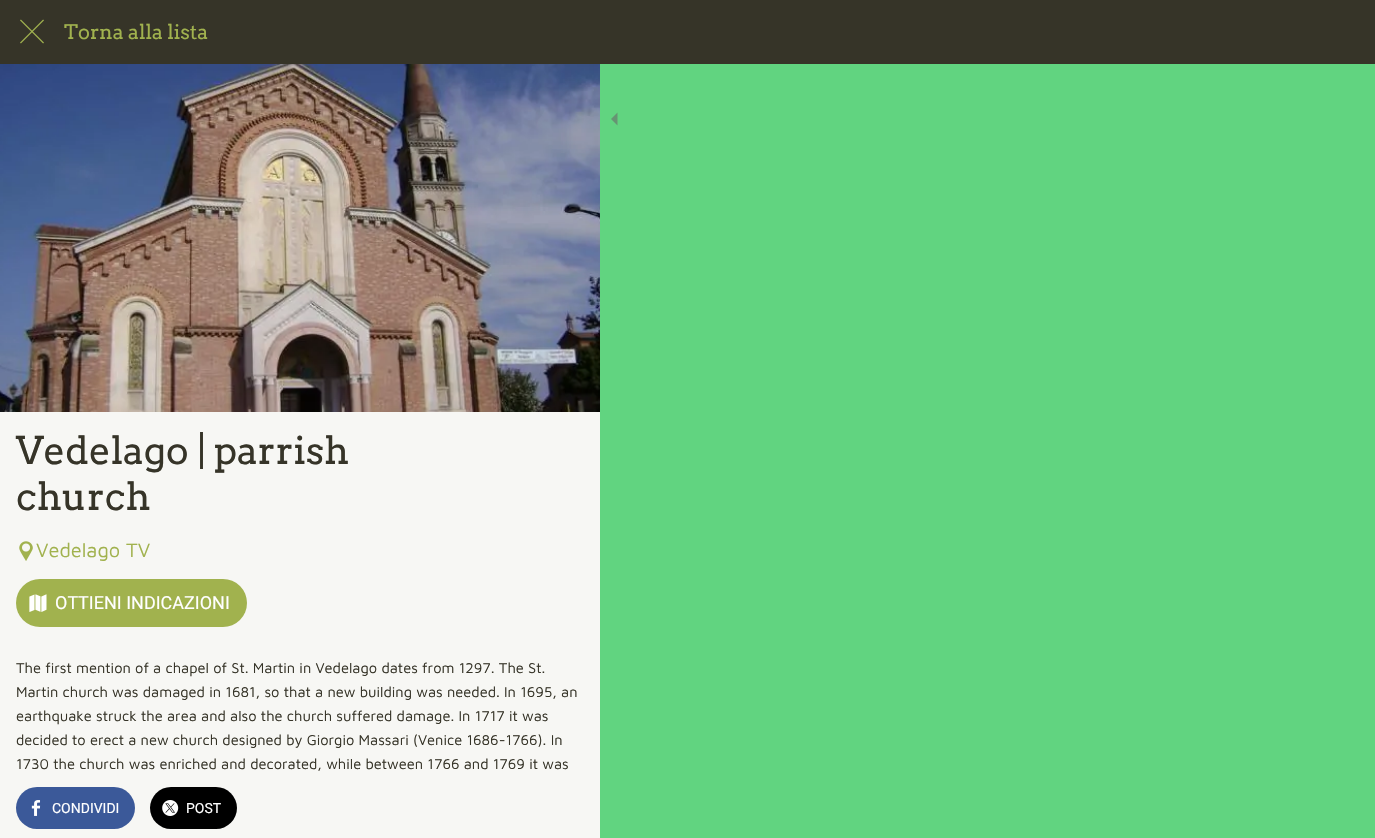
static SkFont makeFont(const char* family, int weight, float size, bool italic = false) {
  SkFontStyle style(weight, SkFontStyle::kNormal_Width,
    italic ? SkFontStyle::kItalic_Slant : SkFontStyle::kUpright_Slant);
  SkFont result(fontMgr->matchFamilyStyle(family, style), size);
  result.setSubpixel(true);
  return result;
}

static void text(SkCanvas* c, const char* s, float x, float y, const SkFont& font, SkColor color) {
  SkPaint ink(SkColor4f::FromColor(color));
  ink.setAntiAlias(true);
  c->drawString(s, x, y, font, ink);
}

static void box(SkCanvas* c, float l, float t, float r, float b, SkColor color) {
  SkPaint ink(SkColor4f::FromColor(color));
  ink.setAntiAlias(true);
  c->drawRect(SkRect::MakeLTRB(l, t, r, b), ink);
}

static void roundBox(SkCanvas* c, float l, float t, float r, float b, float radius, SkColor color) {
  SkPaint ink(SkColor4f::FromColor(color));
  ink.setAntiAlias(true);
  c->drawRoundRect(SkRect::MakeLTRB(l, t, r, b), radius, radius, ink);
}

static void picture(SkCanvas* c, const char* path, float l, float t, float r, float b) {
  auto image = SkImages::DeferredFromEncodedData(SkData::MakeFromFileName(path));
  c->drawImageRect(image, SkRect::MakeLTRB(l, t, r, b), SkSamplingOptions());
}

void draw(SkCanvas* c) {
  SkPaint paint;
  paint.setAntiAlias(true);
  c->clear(0xff61d480);
  box(c, 0, 0, 1375, 64, 0xff363428);
  picture(c, "img_01.png", 20, 19, 44, 44);
  SkFont face1 = makeFont("Arvo", 400, 20);
  text(c, "Torna alla lista", 64, 39, face1, 0xffa1b24e);
  paint.setColor(0xff669473);
  c->drawPath(SkPathBuilder().moveTo(617.5f, 112.5f).lineTo(611, 119).lineTo(617.5f, 125.5f).lineTo(617.5f, 113).close().detach(), paint);
  picture(c, "img_02.png", 0, 64, 600, 412);
  box(c, 0, 412, 600, 838, 0xfff7f7f4);
  SkFont face2 = makeFont("Arvo", 400, 38);
  text(c, "Vedelago | parrish", 16, 464, face2, 0xff363428);
  text(c, "church", 16, 510, face2, 0xff363428);
  picture(c, "img_03.png", 19, 541, 33, 561);
  SkFont face3 = makeFont("Maven Pro", 400, 20);
  text(c, "Vedelago TV", 36, 557, face3, 0xffa1b24e);
  roundBox(c, 16, 579, 247, 627, 24, 0xffa1b24e);
  picture(c, "img_04.png", 29, 594, 47, 612);
  SkFont face4 = makeFont("Roboto", 400, 18);
  text(c, "OTTIENI INDICAZIONI", 55, 609, face4, 0xffffffff);
  SkFont face5 = makeFont("Maven Pro", 400, 14.65f);
  text(c, "The first mention of a chapel of St. Martin in Vedelago dates from 1297. The St.", 16, 673, face5, 0xff363428);
  text(c, "Martin church was damaged in 1681, so that a new building was needed. In 1695, an", 16, 697, face5, 0xff363428);
  text(c, "earthquake struck the area and also the church suffered damage. In 1717 it was", 16, 721, face5, 0xff363428);
  text(c, "decided to erect a new church designed by Giorgio Massari (Venice 1686-1766). In", 16, 745, face5, 0xff363428);
  text(c, "1730 the church was enriched and decorated, while between 1766 and 1769 it was", 16, 769, face5, 0xff363428);
  roundBox(c, 16, 787, 135, 829, 21, 0xff3b5999);
  picture(c, "img_05.png", 31, 800, 41, 816);
  SkFont face6 = makeFont("Roboto", 400, 14);
  text(c, "CONDIVIDI", 52, 813, face6, 0xffffffff);
  roundBox(c, 150, 787, 237, 829, 21, 0xff000000);
  picture(c, "img_06.png", 162, 800, 179, 816);
  text(c, "POST", 186, 813, face6, 0xffffffff);
}
